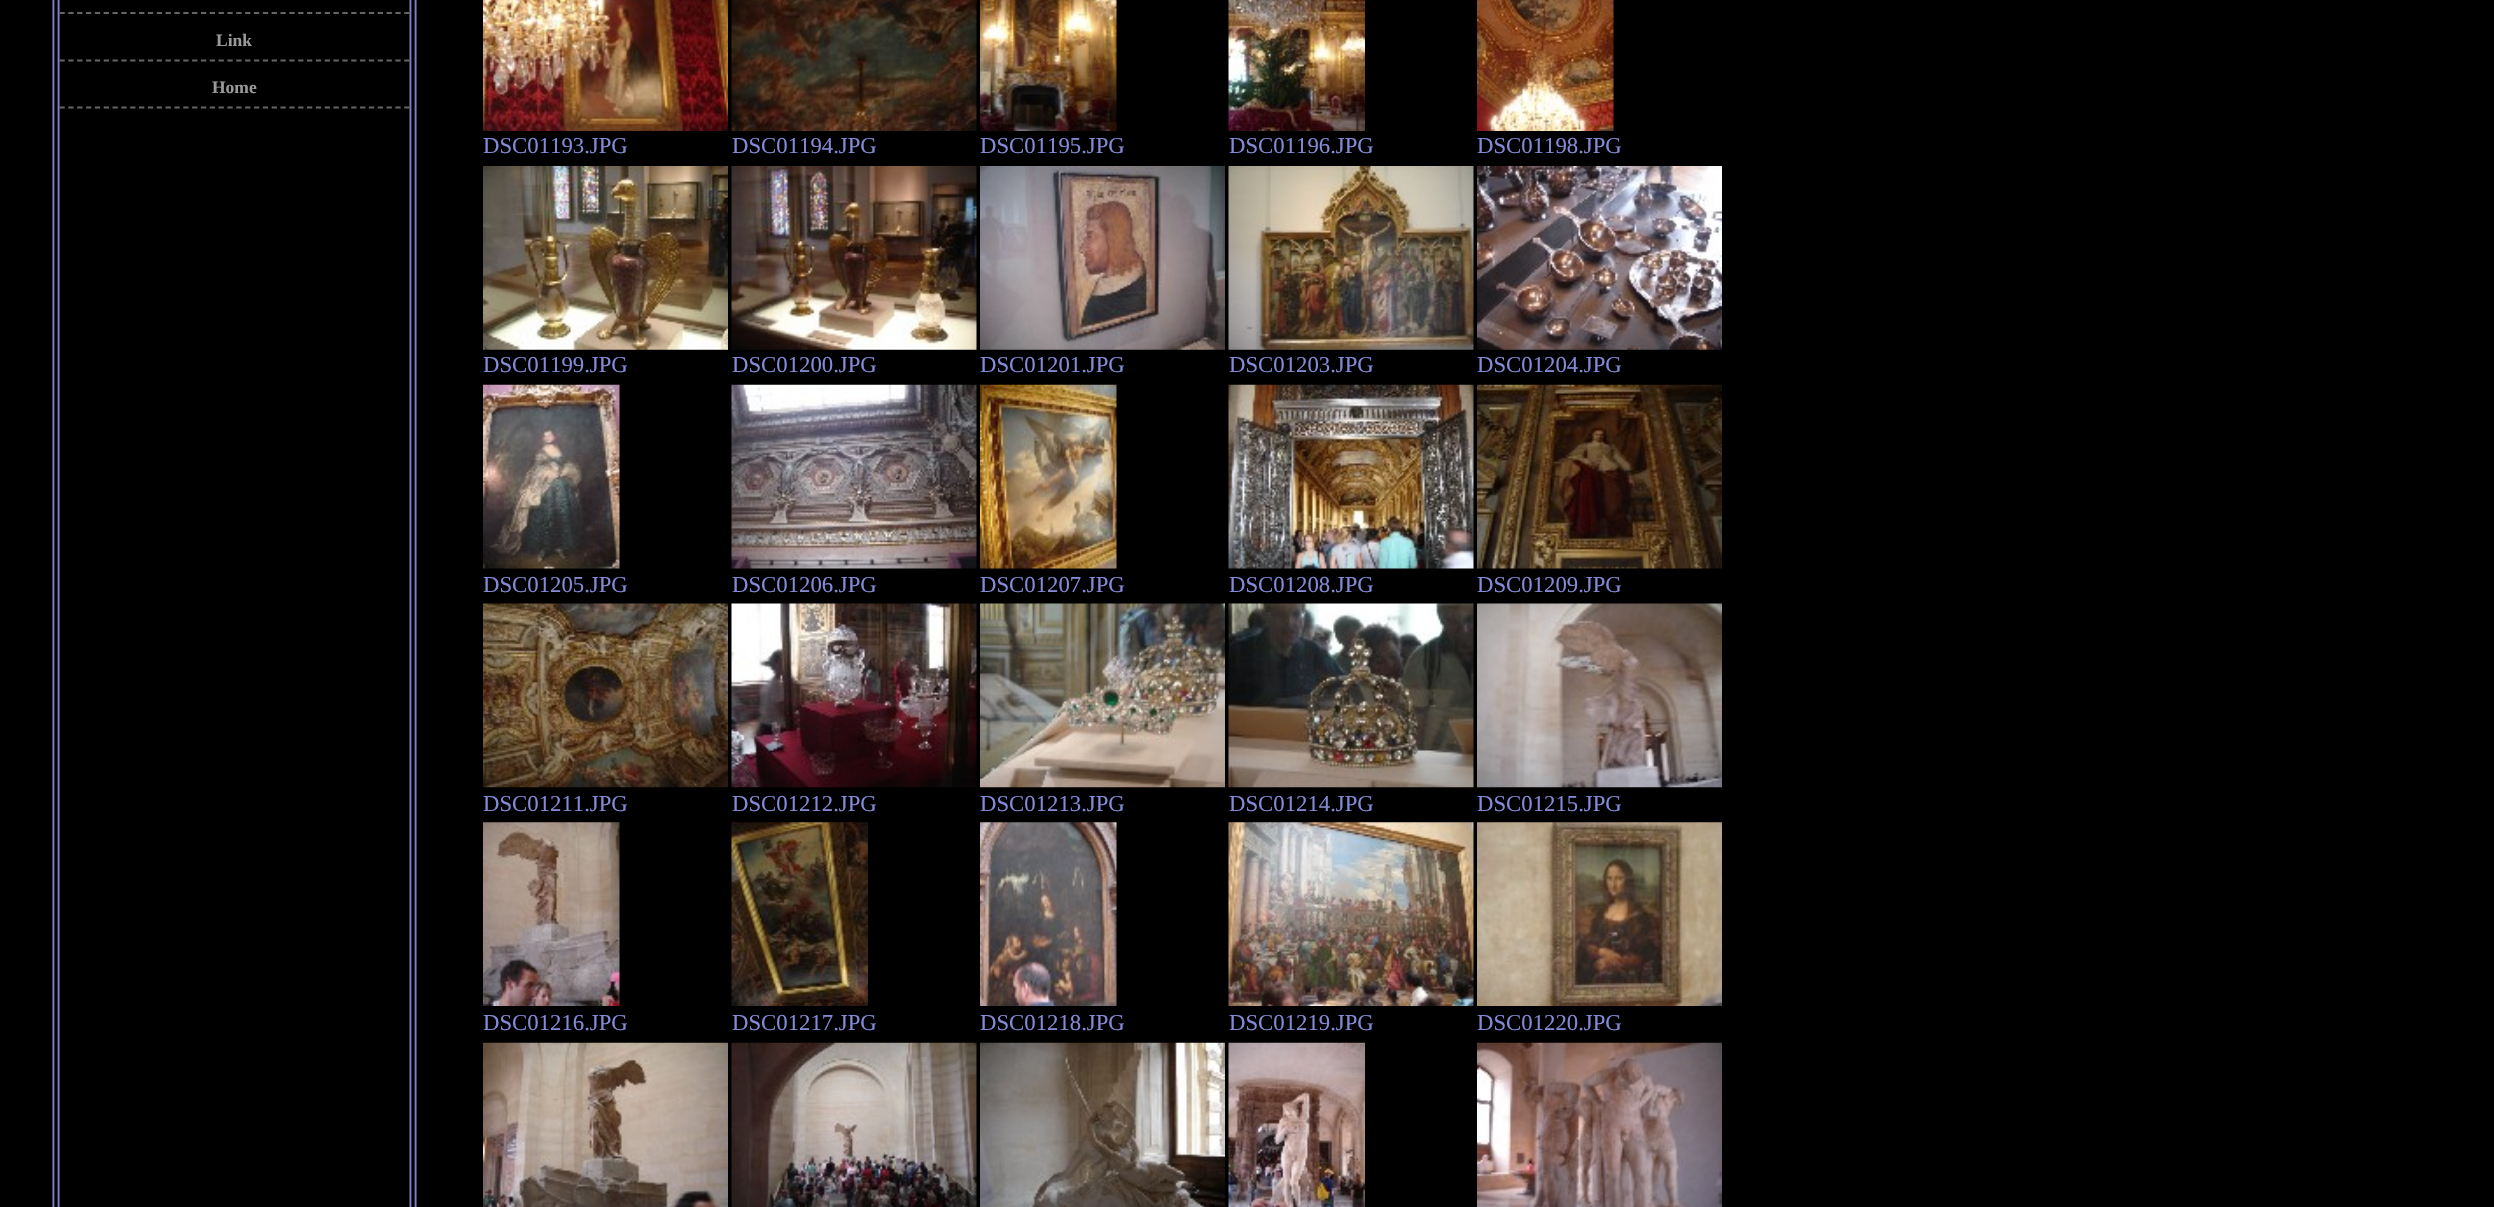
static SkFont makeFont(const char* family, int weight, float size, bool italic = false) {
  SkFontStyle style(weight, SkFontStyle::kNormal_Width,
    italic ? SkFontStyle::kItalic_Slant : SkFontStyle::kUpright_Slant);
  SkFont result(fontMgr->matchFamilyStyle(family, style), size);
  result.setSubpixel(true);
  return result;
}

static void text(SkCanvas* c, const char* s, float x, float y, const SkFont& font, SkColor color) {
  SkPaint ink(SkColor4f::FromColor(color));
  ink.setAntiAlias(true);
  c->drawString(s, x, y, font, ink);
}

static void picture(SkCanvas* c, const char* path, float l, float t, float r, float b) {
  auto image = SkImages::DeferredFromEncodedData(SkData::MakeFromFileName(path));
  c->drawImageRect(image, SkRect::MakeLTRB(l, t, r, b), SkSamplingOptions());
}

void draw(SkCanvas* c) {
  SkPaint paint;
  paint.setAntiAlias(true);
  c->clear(0xff000000);
  picture(c, "img_01.png", 52, 0, 417, 1207);
  paint.setStyle(SkPaint::kStroke_Style);
  paint.setStrokeWidth(1.8f);
  paint.setColor(0xff666666);
  paint.setPathEffect(SkDashPathEffect::Make({{5.25f, 3.59f}}, 0));
  c->drawPath(SkPathBuilder().moveTo(59.5f, 13).lineTo(409.5f, 13).detach(), paint);
  paint.setPathEffect(nullptr);
  paint.setPathEffect(SkDashPathEffect::Make({{5.25f, 3.59f}}, 0));
  c->drawPath(SkPathBuilder().moveTo(59.5f, 60.5f).lineTo(409.5f, 60.5f).detach(), paint);
  paint.setPathEffect(nullptr);
  SkFont face1 = makeFont("Liberation Serif", 700, 17.5f);
  text(c, "Link", 216, 46, face1, 0xff999999);
  paint.setPathEffect(SkDashPathEffect::Make({{5.25f, 3.59f}}, 0));
  c->drawPath(SkPathBuilder().moveTo(59.5f, 107.5f).lineTo(409.5f, 107.5f).detach(), paint);
  paint.setPathEffect(nullptr);
  text(c, "Home", 212, 93, face1, 0xff999999);
  picture(c, "img_02.png", 483, 0, 728, 131);
  SkFont face2 = makeFont("Liberation Serif", 400, 22.75f);
  text(c, "DSC01193.JPG", 483, 153, face2, 0xff848ad6);
  picture(c, "img_03.png", 731, 0, 977, 131);
  text(c, "DSC01194.JPG", 732, 153, face2, 0xff848ad6);
  picture(c, "img_04.png", 980, 0, 1117, 131);
  text(c, "DSC01195.JPG", 980, 153, face2, 0xff848ad6);
  picture(c, "img_05.png", 1228, 0, 1365, 131);
  text(c, "DSC01196.JPG", 1229, 153, face2, 0xff848ad6);
  picture(c, "img_06.png", 1477, 0, 1614, 131);
  text(c, "DSC01198.JPG", 1477, 153, face2, 0xff848ad6);
  picture(c, "img_07.png", 483, 166, 728, 350);
  text(c, "DSC01199.JPG", 483, 372, face2, 0xff848ad6);
  picture(c, "img_08.png", 731, 166, 977, 350);
  text(c, "DSC01200.JPG", 732, 372, face2, 0xff848ad6);
  picture(c, "img_09.png", 980, 166, 1225, 350);
  text(c, "DSC01201.JPG", 980, 372, face2, 0xff848ad6);
  picture(c, "img_10.png", 1228, 166, 1474, 350);
  text(c, "DSC01203.JPG", 1229, 372, face2, 0xff848ad6);
  picture(c, "img_11.png", 1477, 166, 1722, 350);
  text(c, "DSC01204.JPG", 1477, 372, face2, 0xff848ad6);
  picture(c, "img_12.png", 483, 384, 620, 569);
  text(c, "DSC01205.JPG", 483, 592, face2, 0xff848ad6);
  picture(c, "img_13.png", 731, 384, 977, 569);
  text(c, "DSC01206.JPG", 732, 592, face2, 0xff848ad6);
  picture(c, "img_14.png", 980, 384, 1117, 569);
  text(c, "DSC01207.JPG", 980, 592, face2, 0xff848ad6);
  picture(c, "img_15.png", 1228, 384, 1474, 569);
  text(c, "DSC01208.JPG", 1229, 592, face2, 0xff848ad6);
  picture(c, "img_16.png", 1477, 384, 1722, 569);
  text(c, "DSC01209.JPG", 1477, 592, face2, 0xff848ad6);
  picture(c, "img_17.png", 483, 603, 728, 788);
  text(c, "DSC01211.JPG", 483, 811, face2, 0xff848ad6);
  picture(c, "img_18.png", 731, 603, 977, 788);
  text(c, "DSC01212.JPG", 732, 811, face2, 0xff848ad6);
  picture(c, "img_19.png", 980, 603, 1225, 788);
  text(c, "DSC01213.JPG", 980, 811, face2, 0xff848ad6);
  picture(c, "img_20.png", 1228, 603, 1474, 788);
  text(c, "DSC01214.JPG", 1229, 811, face2, 0xff848ad6);
  picture(c, "img_21.png", 1477, 603, 1722, 788);
  text(c, "DSC01215.JPG", 1477, 811, face2, 0xff848ad6);
  picture(c, "img_22.png", 483, 822, 620, 1006);
  text(c, "DSC01216.JPG", 483, 1030, face2, 0xff848ad6);
  picture(c, "img_23.png", 731, 822, 868, 1006);
  text(c, "DSC01217.JPG", 732, 1030, face2, 0xff848ad6);
  picture(c, "img_24.png", 980, 822, 1117, 1006);
  text(c, "DSC01218.JPG", 980, 1030, face2, 0xff848ad6);
  picture(c, "img_25.png", 1228, 822, 1474, 1006);
  text(c, "DSC01219.JPG", 1229, 1030, face2, 0xff848ad6);
  picture(c, "img_26.png", 1477, 822, 1722, 1006);
  text(c, "DSC01220.JPG", 1477, 1030, face2, 0xff848ad6);
  picture(c, "img_27.png", 483, 1042, 728, 1207);
  picture(c, "img_28.png", 731, 1042, 977, 1207);
  picture(c, "img_29.png", 980, 1042, 1225, 1207);
  picture(c, "img_30.png", 1228, 1042, 1365, 1207);
  picture(c, "img_31.png", 1477, 1042, 1722, 1207);
}
